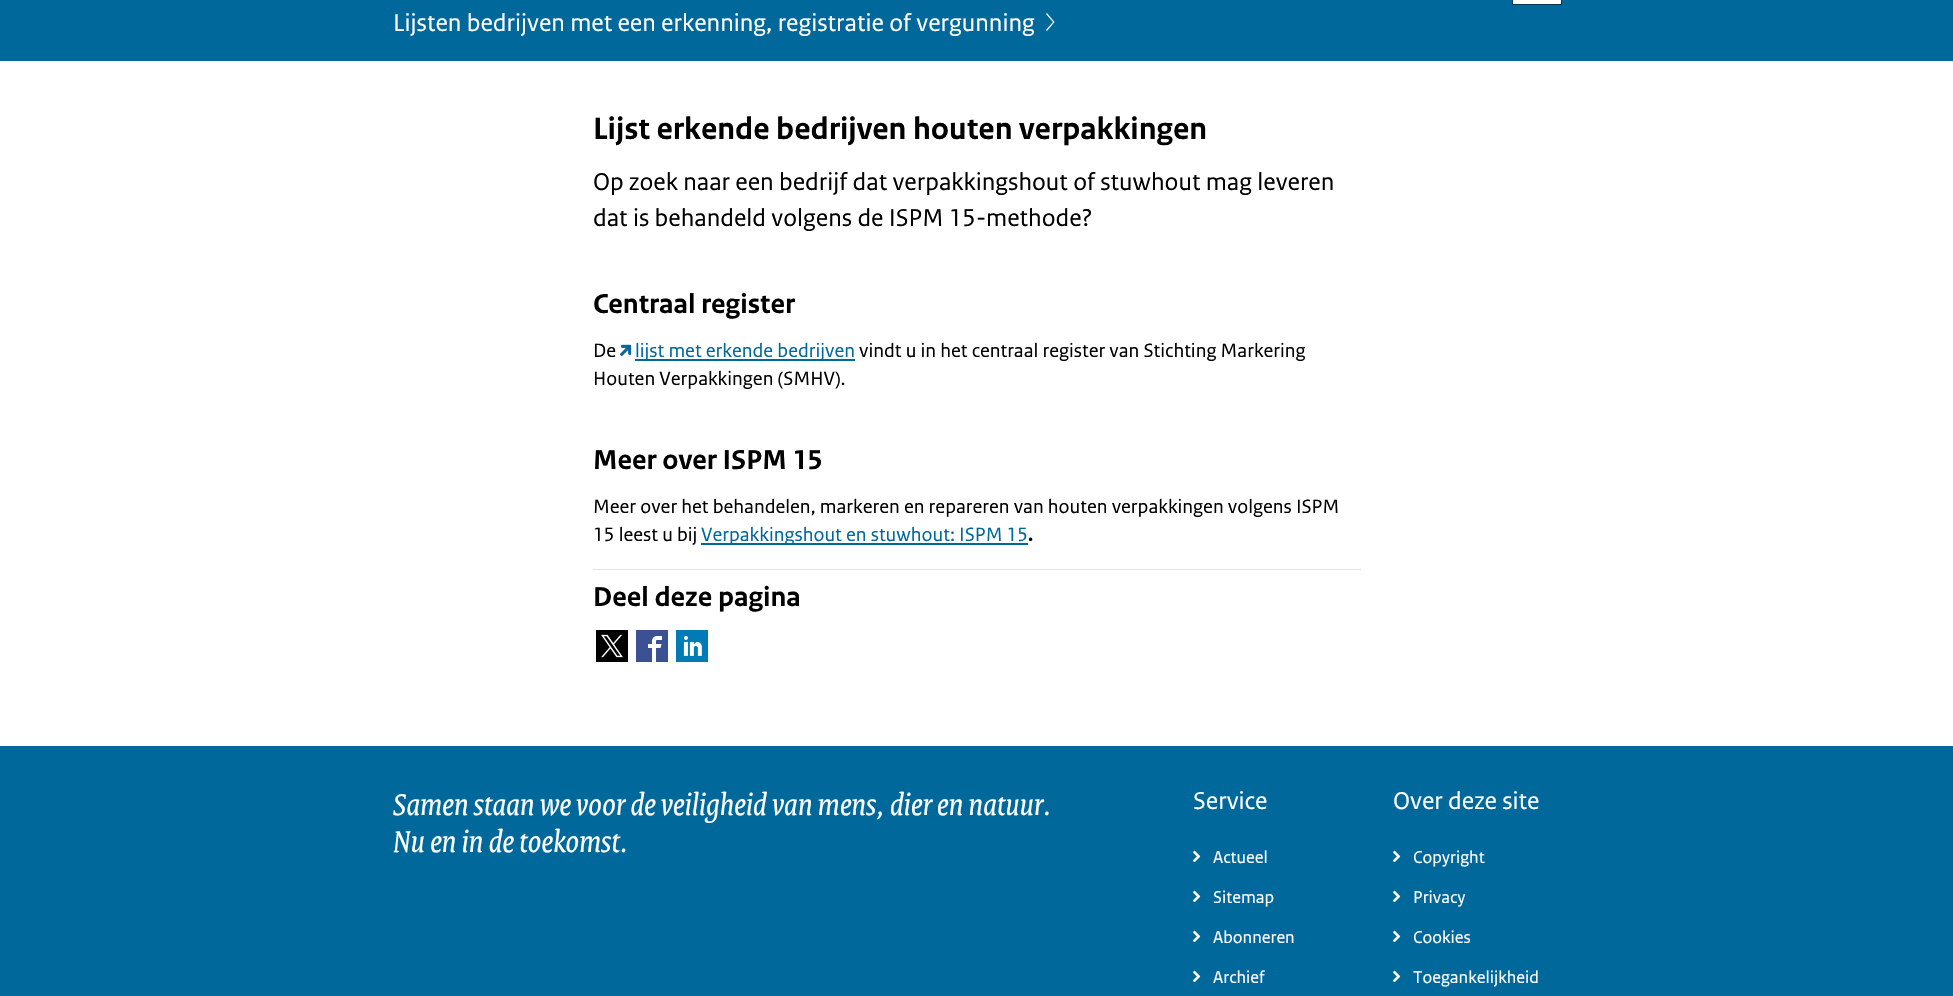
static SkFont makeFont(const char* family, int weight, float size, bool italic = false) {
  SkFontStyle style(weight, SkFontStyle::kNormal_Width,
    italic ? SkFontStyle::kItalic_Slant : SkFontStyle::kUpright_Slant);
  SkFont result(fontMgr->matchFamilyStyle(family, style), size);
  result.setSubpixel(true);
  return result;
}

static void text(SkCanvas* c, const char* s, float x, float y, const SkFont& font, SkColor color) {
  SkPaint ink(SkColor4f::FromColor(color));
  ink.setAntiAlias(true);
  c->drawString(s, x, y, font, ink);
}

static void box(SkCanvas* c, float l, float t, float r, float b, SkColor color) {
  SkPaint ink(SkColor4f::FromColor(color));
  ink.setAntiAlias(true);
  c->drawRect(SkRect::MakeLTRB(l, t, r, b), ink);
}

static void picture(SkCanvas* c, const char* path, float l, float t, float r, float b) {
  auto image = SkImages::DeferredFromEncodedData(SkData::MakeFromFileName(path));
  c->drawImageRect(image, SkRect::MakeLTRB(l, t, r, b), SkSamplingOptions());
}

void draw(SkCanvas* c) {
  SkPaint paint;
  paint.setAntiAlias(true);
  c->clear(0xffffffff);
  box(c, 0, 0, 1953, 61, 0xff01689b);
  paint.setColor(0xffffffff);
  c->drawRect(SkRect::MakeLTRB(1512.5f, -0.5f, 1561.5f, 4.5f), paint);
  paint.setStyle(SkPaint::kStroke_Style);
  paint.setStrokeWidth(1);
  paint.setColor(0xff013a57);
  c->drawRect(SkRect::MakeLTRB(1512.5f, -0.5f, 1561.5f, 4.5f), paint);
  SkFont face1 = makeFont("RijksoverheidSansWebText", 400, 25.6f);
  text(c, "Lijsten bedrijven met een erkenning, registratie of vergunning", 393, 31, face1, 0xffffffff);
  paint.setStyle(SkPaint::kFill_Style);
  paint.setColor(0xffffffff);
  c->drawPath(SkPathBuilder().moveTo(1047, 31).lineTo(1046, 30).lineTo(1053, 22).lineTo(1046, 14).lineTo(1047, 13).lineTo(1054.5f, 22).close().detach(), paint);
  SkFont face2 = makeFont("RijksoverheidSansWebText", 700, 32.4f);
  text(c, "Lijst erkende bedrijven houten verpakkingen", 593, 139, face2, 0xff000000);
  text(c, "Op zoek naar een bedrijf dat verpakkingshout of stuwhout mag leveren", 593, 190, face1, 0xff000000);
  text(c, "dat is behandeld volgens de ISPM 15-methode?", 593, 226, face1, 0xff000000);
  SkFont face3 = makeFont("RijksoverheidSansWebText", 700, 28.75f);
  text(c, "Centraal register", 593, 313, face3, 0xff000000);
  SkFont face4 = makeFont("RijksoverheidSansWebText", 400, 20.25f);
  text(c, "De", 593, 357, face4, 0xff000000);
  picture(c, "img_01.png", 620, 344, 632, 356);
  box(c, 635, 359, 855, 361, 0xff01689b);
  text(c, "lijst met erkende bedrijven", 635, 357, face4, 0xff01689b);
  text(c, "vindt u in het centraal register van Stichting Markering", 859, 357, face4, 0xff000000);
  text(c, "Houten Verpakkingen (SMHV).", 593, 385, face4, 0xff000000);
  text(c, "Meer over ISPM 15", 593, 469, face3, 0xff000000);
  text(c, "Meer over het behandelen, markeren en repareren van houten verpakkingen volgens ISPM", 593, 513, face4, 0xff000000);
  text(c, "15 leest u bij", 593, 541, face4, 0xff000000);
  box(c, 701, 543, 1028, 545, 0xff01689b);
  text(c, "Verpakkingshout en stuwhout: ISPM 15", 701, 541, face4, 0xff01689b);
  SkFont face5 = makeFont("RijksoverheidSansWebText", 700, 20.25f);
  text(c, ".", 1028, 541, face5, 0xff000000);
  box(c, 593, 569, 1361, 570, 0xffe1e1e1);
  text(c, "Deel deze pagina", 593, 606, face3, 0xff000000);
  picture(c, "img_02.png", 596, 630, 628, 662);
  picture(c, "img_03.png", 636, 630, 668, 662);
  picture(c, "img_04.png", 676, 630, 708, 662);
  box(c, 0, 746, 1953, 996, 0xff01689b);
  SkFont face6 = makeFont("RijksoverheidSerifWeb", 400, 32.4f, true);
  text(c, "Samen staan we voor de veiligheid van mens, dier en natuur.", 393, 815, face6, 0xffffffff);
  text(c, "Nu en in de toekomst.", 393, 852, face6, 0xffffffff);
  text(c, "Service", 1193, 809, face1, 0xffffffff);
  picture(c, "img_05.png", 1193, 850, 1201, 862);
  SkFont face7 = makeFont("RijksoverheidSansWebText", 400, 18);
  text(c, "Actueel", 1213, 863, face7, 0xffffffff);
  picture(c, "img_05.png", 1193, 890, 1201, 902);
  text(c, "Sitemap", 1213, 903, face7, 0xffffffff);
  picture(c, "img_05.png", 1193, 930, 1201, 942);
  text(c, "Abonneren", 1213, 943, face7, 0xffffffff);
  picture(c, "img_05.png", 1193, 970, 1201, 982);
  text(c, "Archief", 1213, 983, face7, 0xffffffff);
  text(c, "Over deze site", 1393, 809, face1, 0xffffffff);
  picture(c, "img_05.png", 1393, 850, 1401, 862);
  text(c, "Copyright", 1413, 863, face7, 0xffffffff);
  picture(c, "img_05.png", 1393, 890, 1401, 902);
  text(c, "Privacy", 1413, 903, face7, 0xffffffff);
  picture(c, "img_05.png", 1393, 930, 1401, 942);
  text(c, "Cookies", 1413, 943, face7, 0xffffffff);
  picture(c, "img_05.png", 1393, 970, 1401, 982);
  text(c, "Toegankelijkheid", 1413, 983, face7, 0xffffffff);
}
